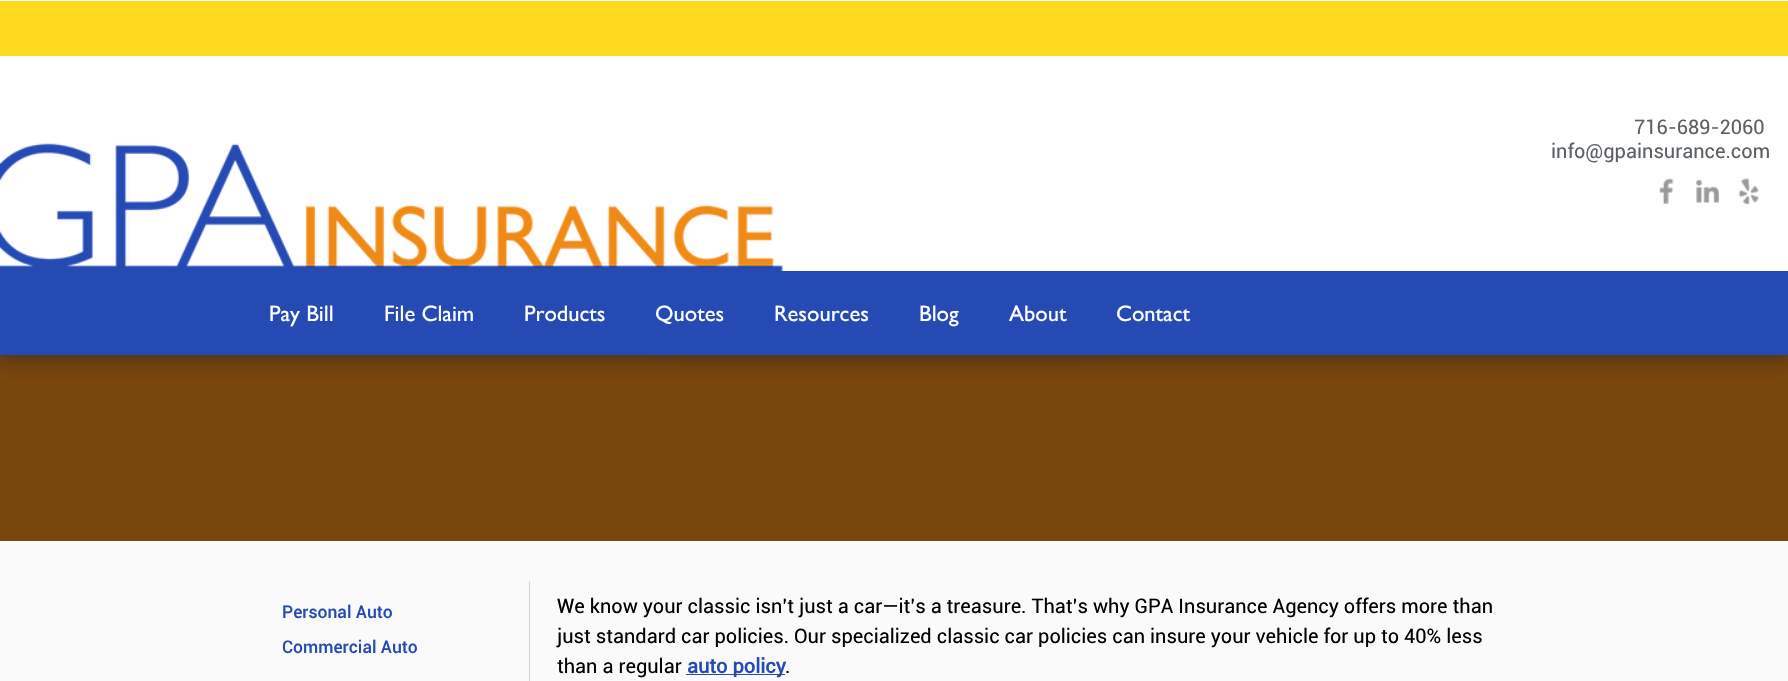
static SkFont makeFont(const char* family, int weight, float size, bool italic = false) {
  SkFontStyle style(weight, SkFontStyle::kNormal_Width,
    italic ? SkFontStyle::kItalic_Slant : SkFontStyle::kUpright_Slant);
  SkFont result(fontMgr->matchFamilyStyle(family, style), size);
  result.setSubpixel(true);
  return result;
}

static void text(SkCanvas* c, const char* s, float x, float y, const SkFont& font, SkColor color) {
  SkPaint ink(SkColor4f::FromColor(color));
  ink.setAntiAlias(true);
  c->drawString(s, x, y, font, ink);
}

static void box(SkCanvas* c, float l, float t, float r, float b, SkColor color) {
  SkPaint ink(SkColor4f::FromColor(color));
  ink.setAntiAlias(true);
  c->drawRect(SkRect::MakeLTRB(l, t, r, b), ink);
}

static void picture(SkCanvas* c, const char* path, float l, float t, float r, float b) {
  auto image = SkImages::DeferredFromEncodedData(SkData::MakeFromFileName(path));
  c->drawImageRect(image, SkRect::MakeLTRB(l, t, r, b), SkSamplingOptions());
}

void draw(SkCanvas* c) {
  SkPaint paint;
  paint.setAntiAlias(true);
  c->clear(0xff78450b);
  paint.setColor(0x800c193c);
  paint.setMaskFilter(SkMaskFilter::MakeBlur(kNormal_SkBlurStyle, 9.5f));
  c->drawRect(SkRect::MakeLTRB(-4, -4, 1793, 358), paint);
  paint.setMaskFilter(nullptr);
  paint.setColor(0x82000000);
  paint.setMaskFilter(SkMaskFilter::MakeBlur(kNormal_SkBlurStyle, 14.5f));
  c->drawRoundRect(SkRect::MakeLTRB(655, 220, 1110, 334), 11, 11, paint);
  paint.setMaskFilter(nullptr);
  box(c, 0, 0, 1788, 271, 0xffffffff);
  box(c, 0, 1, 1788, 56, 0xffffda1f);
  picture(c, "img_01.png", 0, 143, 783, 271);
  SkFont face1 = makeFont("Roboto", 400, 20);
  text(c, "716-689-2060", 1634, 134, face1, 0xff5b6064);
  text(c, "info@gpainsurance.com", 1551, 158, face1, 0xff5b6064);
  picture(c, "img_02.png", 1659, 178, 1674, 204);
  picture(c, "img_03.png", 1695, 179, 1720, 203);
  picture(c, "img_04.png", 1738, 178, 1759, 205);
  box(c, 0, 271, 1788, 355, 0xff254ab4);
  SkFont face2 = makeFont("Gill Sans", 400, 22.5f);
  text(c, "Pay Bill", 269, 321, face2, 0xffffffff);
  text(c, "File Claim", 384, 321, face2, 0xffffffff);
  text(c, "Products", 524, 321, face2, 0xffffffff);
  text(c, "Quotes", 655, 321, face2, 0xffffffff);
  text(c, "Resources", 774, 321, face2, 0xffffffff);
  text(c, "Blog", 919, 321, face2, 0xffffffff);
  text(c, "About", 1009, 321, face2, 0xffffffff);
  text(c, "Contact", 1116, 321, face2, 0xffffffff);
  box(c, 0, 541, 1788, 681, 0xfffafafa);
  SkFont face3 = makeFont("Roboto", 500, 17.5f);
  text(c, "Personal Auto", 282, 618, face3, 0xff254ab4);
  text(c, "Commercial Auto", 282, 653, face3, 0xff254ab4);
  box(c, 529, 582, 530, 681, 0xffcdcfd0);
  text(c, "We know your classic isn’t just a car—it’s a treasure. That’s why GPA Insurance Agency offers more than", 557, 613, face1, 0xff000000);
  text(c, "just standard car policies. Our specialized classic car policies can insure your vehicle for up to 40% less", 557, 643, face1, 0xff000000);
  text(c, "than a regular", 557, 673, face1, 0xff000000);
  box(c, 686, 674, 785, 675, 0xff254ab4);
  SkFont face4 = makeFont("Roboto", 700, 20);
  text(c, "auto policy", 687, 673, face4, 0xff254ab4);
  text(c, ".", 785, 673, face1, 0xff000000);
}
